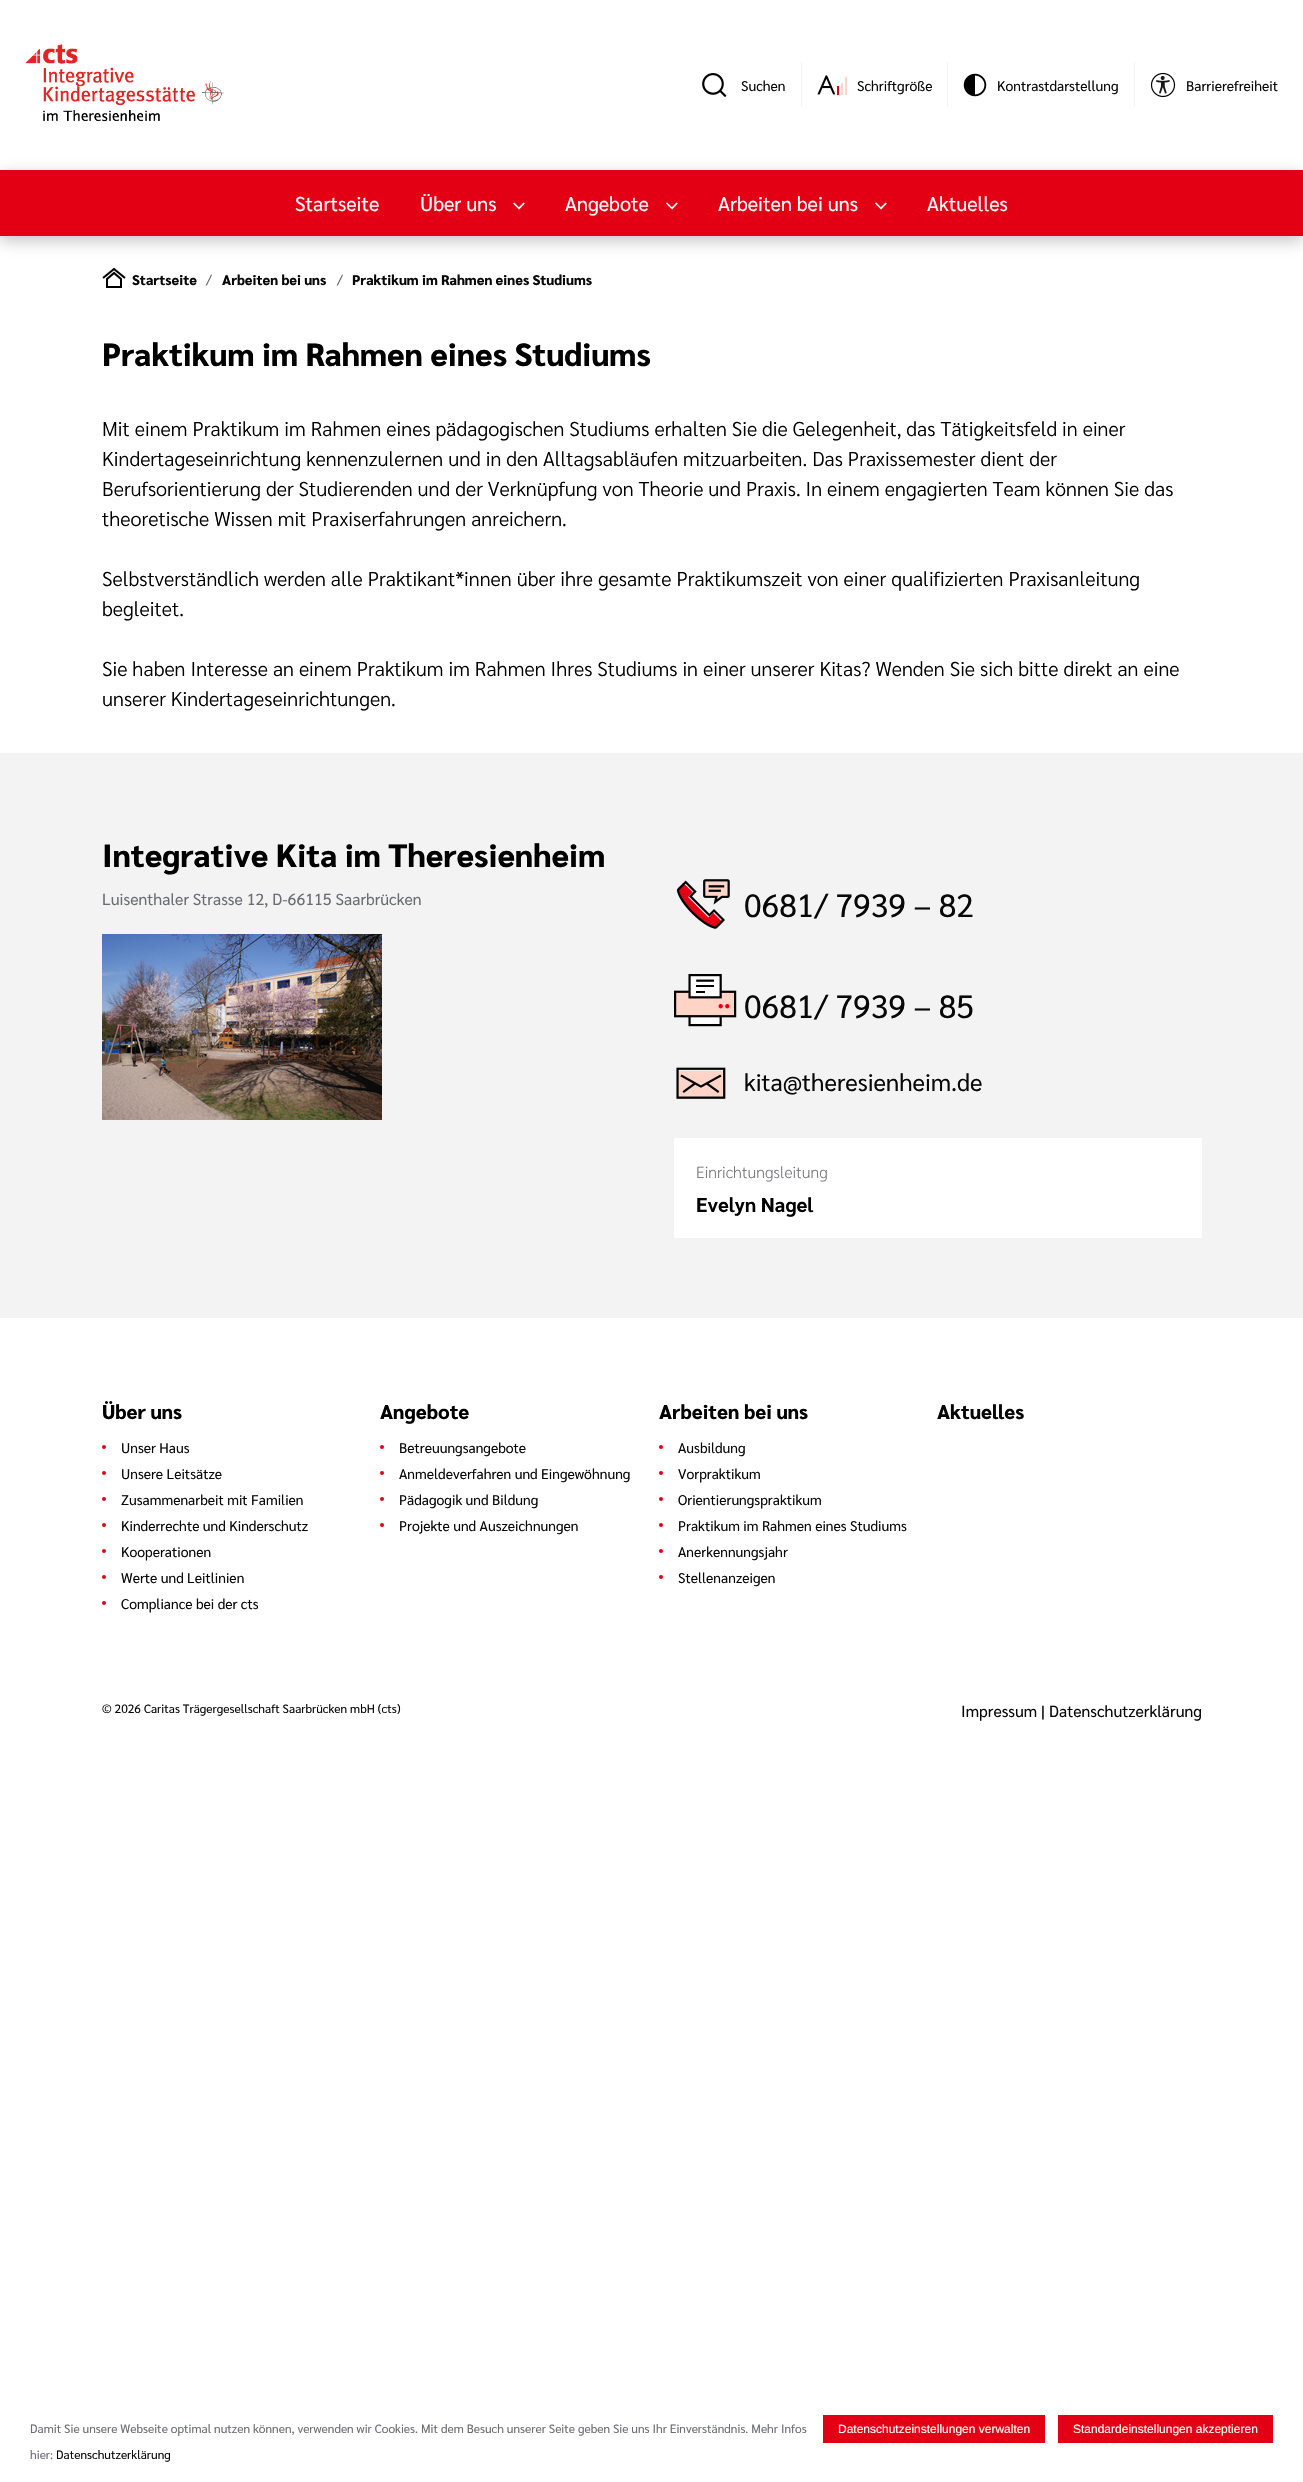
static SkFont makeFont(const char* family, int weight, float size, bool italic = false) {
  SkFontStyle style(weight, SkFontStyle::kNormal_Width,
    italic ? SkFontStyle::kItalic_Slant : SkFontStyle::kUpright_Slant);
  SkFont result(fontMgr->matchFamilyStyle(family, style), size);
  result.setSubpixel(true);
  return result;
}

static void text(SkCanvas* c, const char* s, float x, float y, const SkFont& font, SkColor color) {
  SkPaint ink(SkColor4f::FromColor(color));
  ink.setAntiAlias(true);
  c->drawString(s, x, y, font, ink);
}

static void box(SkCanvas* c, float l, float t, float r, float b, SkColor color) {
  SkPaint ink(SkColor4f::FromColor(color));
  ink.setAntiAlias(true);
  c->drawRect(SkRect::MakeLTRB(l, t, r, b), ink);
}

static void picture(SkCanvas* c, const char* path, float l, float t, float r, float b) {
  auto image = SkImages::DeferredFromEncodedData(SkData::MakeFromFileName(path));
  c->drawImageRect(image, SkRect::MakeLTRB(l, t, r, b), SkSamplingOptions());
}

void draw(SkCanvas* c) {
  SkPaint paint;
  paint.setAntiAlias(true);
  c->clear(0xffffffff);
  picture(c, "img_01.png", 25, 44, 224, 122);
  picture(c, "img_02.png", 702, 73, 727, 97);
  SkFont face1 = makeFont("Sarabun", 400, 14);
  text(c, "Suchen", 741, 91, face1, 0xff080808);
  box(c, 801, 62, 802, 107, 0xfff3f3f4);
  picture(c, "img_03.png", 817, 75, 847, 95);
  text(c, "Schriftgröße", 857, 91, face1, 0xff080808);
  box(c, 947, 62, 948, 107, 0xfff3f3f4);
  picture(c, "img_04.png", 963, 73, 987, 97);
  text(c, "Kontrastdarstellung", 997, 91, face1, 0xff080808);
  box(c, 1134, 62, 1135, 107, 0xfff3f3f4);
  picture(c, "img_05.png", 1150, 72, 1176, 98);
  text(c, "Barrierefreiheit", 1186, 91, face1, 0xff080808);
  box(c, 0, 170, 1303, 236, 0xffe30015);
  c->save();
  c->clipPath(SkPathBuilder(SkPathFillType::kEvenOdd).moveTo(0, 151).lineTo(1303, 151).lineTo(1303, 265).lineTo(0, 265).close().moveTo(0, 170).lineTo(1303, 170).lineTo(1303, 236).lineTo(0, 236).close().detach(), true);
  paint.setColor(0x666b6d72);
  paint.setMaskFilter(SkMaskFilter::MakeBlur(kNormal_SkBlurStyle, 7.5f));
  c->drawRect(SkRect::MakeLTRB(0, 175, 1303, 241), paint);
  paint.setMaskFilter(nullptr);
  c->restore();
  SkFont face2 = makeFont("Sarabun", 400, 20);
  text(c, "Startseite", 295, 211, face2, 0xffffffff);
  text(c, "Über uns", 420, 211, face2, 0xffffffff);
  picture(c, "img_06.png", 513, 202, 525, 210);
  text(c, "Angebote", 565, 211, face2, 0xffffffff);
  picture(c, "img_06.png", 666, 202, 678, 210);
  text(c, "Arbeiten bei uns", 718, 211, face2, 0xffffffff);
  picture(c, "img_06.png", 875, 202, 887, 210);
  text(c, "Aktuelles", 927, 211, face2, 0xffffffff);
  picture(c, "img_07.png", 102, 267, 126, 288);
  SkFont face3 = makeFont("Sarabun", 800, 14);
  text(c, "Startseite", 132, 285, face3, 0xff080808);
  text(c, "/", 206, 285, face1, 0xff6b6d72);
  text(c, "Arbeiten bei uns", 222, 285, face3, 0xff080808);
  text(c, "/", 337, 285, face1, 0xff6b6d72);
  text(c, "Praktikum im Rahmen eines Studiums", 352, 285, face3, 0xff080808);
  SkFont face4 = makeFont("Sarabun", 800, 32);
  text(c, "Praktikum im Rahmen eines Studiums", 102, 366, face4, 0xff000000);
  SkFont face5 = makeFont("Sarabun", 300, 20);
  text(c, "Mit einem Praktikum im Rahmen eines pädagogischen Studiums erhalten Sie die Gelegenheit, das Tätigkeitsfeld in einer", 102, 436, face5, 0xff000000);
  text(c, "Kindertageseinrichtung kennenzulernen und in den Alltagsabläufen mitzuarbeiten. Das Praxissemester dient der", 102, 466, face5, 0xff000000);
  text(c, "Berufsorientierung der Studierenden und der Verknüpfung von Theorie und Praxis. In einem engagierten Team können Sie das", 102, 496, face5, 0xff000000);
  text(c, "theoretische Wissen mit Praxiserfahrungen anreichern.", 102, 526, face5, 0xff000000);
  text(c, "Selbstverständlich werden alle Praktikant*innen über ihre gesamte Praktikumszeit von einer qualifizierten Praxisanleitung", 102, 586, face5, 0xff000000);
  text(c, "begleitet.", 102, 616, face5, 0xff000000);
  text(c, "Sie haben Interesse an einem Praktikum im Rahmen Ihres Studiums in einer unserer Kitas? Wenden Sie sich bitte direkt an eine", 102, 676, face5, 0xff000000);
  text(c, "unserer Kindertageseinrichtungen.", 102, 706, face5, 0xff000000);
  box(c, 0, 753, 1303, 1318, 0xfff3f3f4);
  text(c, "Integrative Kita im Theresienheim", 102, 867, face4, 0xff000000);
  SkFont face6 = makeFont("Sarabun", 400, 16);
  text(c, "Luisenthaler Strasse 12, D-66115 Saarbrücken", 102, 905, face6, 0xff6b6d72);
  picture(c, "img_08.png", 102, 934, 382, 1120);
  picture(c, "img_09.png", 676, 879, 730, 929);
  SkFont face7 = makeFont("Sarabun", 400, 32);
  text(c, "0681/ 7939 – 82", 744, 917, face7, 0xff080808);
  picture(c, "img_10.png", 674, 974, 737, 1027);
  text(c, "0681/ 7939 – 85", 744, 1018, face7, 0xff080808);
  picture(c, "img_11.png", 676, 1067, 726, 1099);
  SkFont face8 = makeFont("Sarabun", 400, 24);
  text(c, "kita@theresienheim.de", 744, 1091, face8, 0xff080808);
  box(c, 674, 1138, 1202, 1238, 0xffffffff);
  SkFont face9 = makeFont("Sarabun", 200, 16);
  text(c, "Einrichtungsleitung", 696, 1178, face9, 0xff6b6d72);
  SkFont face10 = makeFont("Sarabun", 700, 20);
  text(c, "Evelyn Nagel", 696, 1212, face10, 0xff000000);
  SkFont face11 = makeFont("Sarabun", 800, 20);
  text(c, "Über uns", 102, 1419, face11, 0xff000000);
  paint.setColor(0xffe30015);
  c->drawCircle(104, 1447, 2, paint);
  text(c, "Unser Haus", 121, 1453, face1, 0xff080808);
  c->drawCircle(104, 1473, 2, paint);
  text(c, "Unsere Leitsätze", 121, 1479, face1, 0xff080808);
  c->drawCircle(104, 1499, 2, paint);
  text(c, "Zusammenarbeit mit Familien", 121, 1505, face1, 0xff080808);
  c->drawCircle(104, 1525, 2, paint);
  text(c, "Kinderrechte und Kinderschutz", 121, 1531, face1, 0xff080808);
  c->drawCircle(104, 1551, 2, paint);
  text(c, "Kooperationen", 121, 1557, face1, 0xff080808);
  c->drawCircle(104, 1577, 2, paint);
  text(c, "Werte und Leitlinien", 121, 1583, face1, 0xff080808);
  c->drawCircle(104, 1603, 2, paint);
  text(c, "Compliance bei der cts", 121, 1609, face1, 0xff080808);
  text(c, "Angebote", 380, 1419, face11, 0xff000000);
  c->drawCircle(382, 1447, 2, paint);
  text(c, "Betreuungsangebote", 399, 1453, face1, 0xff080808);
  c->drawCircle(382, 1473, 2, paint);
  text(c, "Anmeldeverfahren und Eingewöhnung", 399, 1479, face1, 0xff080808);
  c->drawCircle(382, 1499, 2, paint);
  text(c, "Pädagogik und Bildung", 399, 1505, face1, 0xff080808);
  c->drawCircle(382, 1525, 2, paint);
  text(c, "Projekte und Auszeichnungen", 399, 1531, face1, 0xff080808);
  text(c, "Arbeiten bei uns", 659, 1419, face11, 0xff000000);
  c->drawCircle(661, 1447, 2, paint);
  text(c, "Ausbildung", 678, 1453, face1, 0xff080808);
  c->drawCircle(661, 1473, 2, paint);
  text(c, "Vorpraktikum", 678, 1479, face1, 0xff080808);
  c->drawCircle(661, 1499, 2, paint);
  text(c, "Orientierungspraktikum", 678, 1505, face1, 0xff080808);
  c->drawCircle(661, 1525, 2, paint);
  text(c, "Praktikum im Rahmen eines Studiums", 678, 1531, face1, 0xff080808);
  c->drawCircle(661, 1551, 2, paint);
  text(c, "Anerkennungsjahr", 678, 1557, face1, 0xff080808);
  c->drawCircle(661, 1577, 2, paint);
  text(c, "Stellenanzeigen", 678, 1583, face1, 0xff080808);
  text(c, "Aktuelles", 937, 1419, face11, 0xff080808);
  SkFont face12 = makeFont("Sarabun", 400, 12);
  text(c, "© 2026 Caritas Trägergesellschaft Saarbrücken mbH (cts)", 102, 1713, face12, 0xff080808);
  text(c, "Impressum", 961, 1717, face6, 0xff080808);
  text(c, "|", 1041, 1717, face6, 0xff000000);
  text(c, "Datenschutzerklärung", 1049, 1717, face6, 0xff080808);
  text(c, "Damit Sie unsere Webseite optimal nutzen können, verwenden wir Cookies. Mit dem Besuch unserer Seite geben Sie uns Ihr Einverständnis. Mehr Infos", 30, 2433, face12, 0xff6b6d72);
  text(c, "hier:", 30, 2459, face12, 0xff6b6d72);
  text(c, "Datenschutzerklärung", 56, 2459, face12, 0xff080808);
  box(c, 823, 2415, 1045, 2443, 0xffe30015);
  SkFont face13 = makeFont("Liberation Sans", 400, 12);
  text(c, "Datenschutzeinstellungen verwalten", 838, 2433, face13, 0xffffffff);
  box(c, 1058, 2415, 1273, 2443, 0xffe30015);
  text(c, "Standardeinstellungen akzeptieren", 1073, 2433, face13, 0xffffffff);
}
